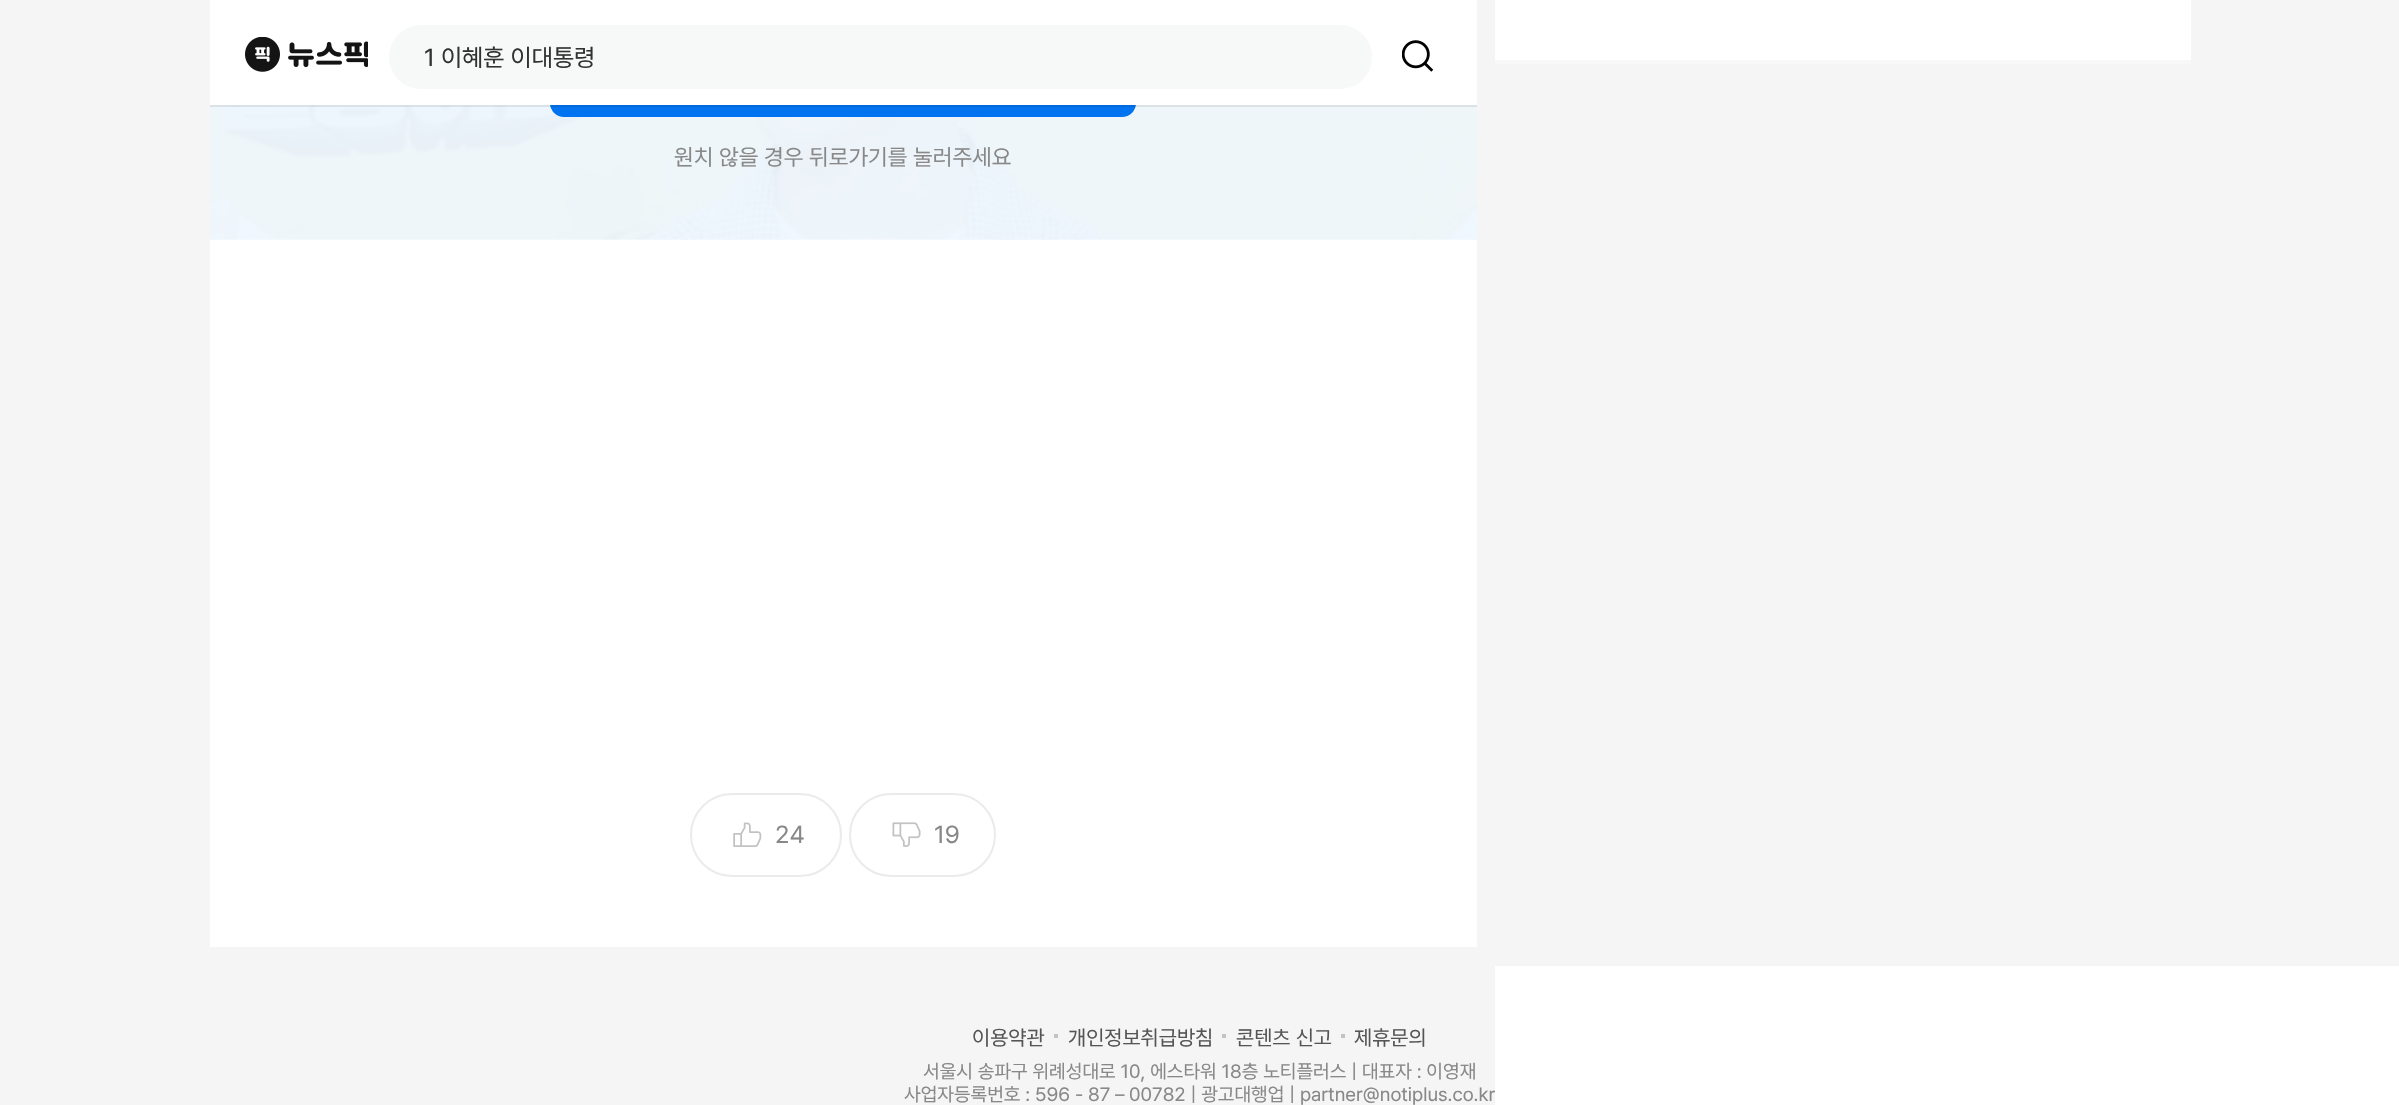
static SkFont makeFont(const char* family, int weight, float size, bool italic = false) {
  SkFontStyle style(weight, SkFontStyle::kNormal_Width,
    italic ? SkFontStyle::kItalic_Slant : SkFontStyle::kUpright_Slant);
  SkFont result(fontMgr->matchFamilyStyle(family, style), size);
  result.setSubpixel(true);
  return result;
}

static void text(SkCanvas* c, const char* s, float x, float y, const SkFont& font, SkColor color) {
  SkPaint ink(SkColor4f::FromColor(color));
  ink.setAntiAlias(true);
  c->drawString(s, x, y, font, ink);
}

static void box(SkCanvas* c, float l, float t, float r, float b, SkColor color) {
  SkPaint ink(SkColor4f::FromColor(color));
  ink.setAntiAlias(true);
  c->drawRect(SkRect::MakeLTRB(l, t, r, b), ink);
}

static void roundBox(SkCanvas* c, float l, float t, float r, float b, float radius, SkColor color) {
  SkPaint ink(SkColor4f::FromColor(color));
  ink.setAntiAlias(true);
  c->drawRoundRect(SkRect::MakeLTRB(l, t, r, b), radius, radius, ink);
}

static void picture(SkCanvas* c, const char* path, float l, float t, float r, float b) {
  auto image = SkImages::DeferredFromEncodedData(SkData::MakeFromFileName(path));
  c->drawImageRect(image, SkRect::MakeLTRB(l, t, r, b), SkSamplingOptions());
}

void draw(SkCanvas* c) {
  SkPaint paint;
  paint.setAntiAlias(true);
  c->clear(0xfff5f5f5);
  box(c, 210, 239, 1477, 947, 0xffffffff);
  picture(c, "img_03.png", 210, 105, 1477, 240);
  roundBox(c, 550, 30, 1136, 117, 14, 0xff0073f0);
  box(c, 210, 105, 1477, 107, 0x14000000);
  box(c, 210, 0, 1477, 105, 0xffffffff);
  picture(c, "img_01.png", 245, 37, 368, 72);
  roundBox(c, 389, 25, 1372, 89, 32, 0xfff7f8f8);
  SkFont face1 = makeFont("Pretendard", 400, 24.5f);
  text(c, "1 이혜훈 이대통령", 424, 66, face1, 0xff313232);
  picture(c, "img_02.png", 1402, 40, 1433, 72);
  SkFont face2 = makeFont("Pretendard", 400, 22.75f);
  text(c, "원치 않을 경우 뒤로가기를 눌러주세요", 674, 165, face2, 0xff888888);
  paint.setStyle(SkPaint::kStroke_Style);
  paint.setStrokeWidth(2);
  paint.setColor(0xffebebeb);
  c->drawRoundRect(SkRect::MakeLTRB(691, 794, 841, 876), 41, 41, paint);
  picture(c, "img_04.png", 733, 822, 762, 847);
  text(c, "24", 775, 843, face1, 0xff888888);
  c->drawRoundRect(SkRect::MakeLTRB(850, 794, 995, 876), 41, 41, paint);
  picture(c, "img_05.png", 892, 822, 921, 847);
  text(c, "19", 934, 843, face1, 0xff888888);
  box(c, 1495, 0, 2191, 60, 0xffffffff);
  box(c, 1495, 60, 2191, 64, 0xfff8f8f8);
  box(c, 1495, 966, 2399, 1105, 0xffffffff);
  SkFont face3 = makeFont("Pretendard", 400, 21);
  text(c, "이용약관", 972, 1045, face3, 0xff555555);
  box(c, 1054, 1034, 1058, 1038, 0xffc4c4c4);
  text(c, "개인정보취급방침", 1068, 1045, face3, 0xff555555);
  box(c, 1222, 1034, 1226, 1038, 0xffc4c4c4);
  text(c, "콘텐츠 신고", 1236, 1045, face3, 0xff555555);
  box(c, 1341, 1034, 1345, 1038, 0xffc4c4c4);
  text(c, "제휴문의", 1354, 1045, face3, 0xff555555);
  SkFont face4 = makeFont("Pretendard", 400, 19.25f);
  text(c, "서울시 송파구 위례성대로 10, 에스타워 18층 노티플러스 | 대표자 : 이영재", 923, 1078, face4, 0xff888888);
  text(c, "사업자등록번호 : 596 - 87 – 00782 | 광고대행업 | partner@notiplus.co.kr", 904, 1101, face4, 0xff888888);
}
